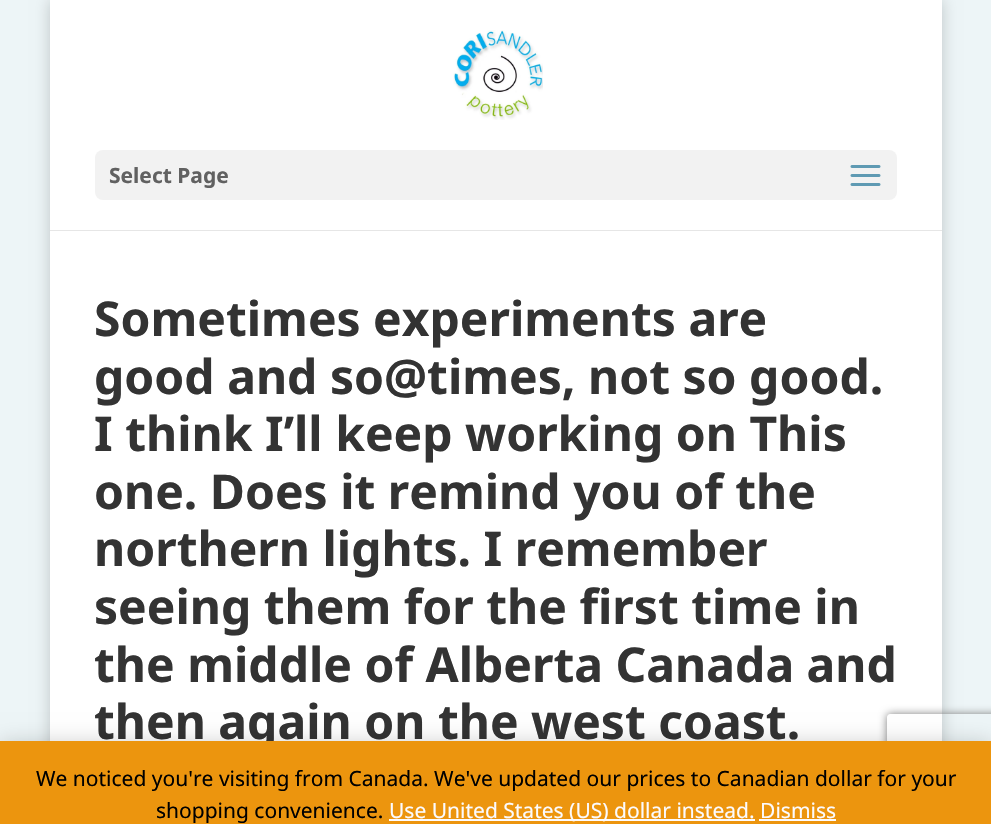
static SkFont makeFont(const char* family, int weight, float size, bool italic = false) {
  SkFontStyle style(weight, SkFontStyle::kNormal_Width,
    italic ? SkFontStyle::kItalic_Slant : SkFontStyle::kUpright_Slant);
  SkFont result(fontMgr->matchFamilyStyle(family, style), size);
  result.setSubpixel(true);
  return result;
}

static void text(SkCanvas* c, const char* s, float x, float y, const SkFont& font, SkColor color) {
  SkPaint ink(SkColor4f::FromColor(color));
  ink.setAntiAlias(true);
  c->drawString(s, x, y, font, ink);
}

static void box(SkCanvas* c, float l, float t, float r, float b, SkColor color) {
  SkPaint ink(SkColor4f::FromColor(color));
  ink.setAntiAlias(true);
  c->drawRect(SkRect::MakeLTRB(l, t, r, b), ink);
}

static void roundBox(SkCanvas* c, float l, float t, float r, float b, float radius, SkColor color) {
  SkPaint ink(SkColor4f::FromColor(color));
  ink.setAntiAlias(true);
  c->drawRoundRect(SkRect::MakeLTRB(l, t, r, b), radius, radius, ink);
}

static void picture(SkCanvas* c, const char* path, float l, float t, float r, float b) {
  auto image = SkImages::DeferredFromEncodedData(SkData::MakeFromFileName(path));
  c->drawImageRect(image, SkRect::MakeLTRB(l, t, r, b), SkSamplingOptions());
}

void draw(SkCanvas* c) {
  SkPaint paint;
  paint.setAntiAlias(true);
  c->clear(0xffedf5f7);
  paint.setColor(0x33000000);
  paint.setMaskFilter(SkMaskFilter::MakeBlur(kNormal_SkBlurStyle, 7.5f));
  c->drawRect(SkRect::MakeLTRB(50, 0, 942, 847), paint);
  paint.setMaskFilter(nullptr);
  box(c, 50, 230, 942, 231, 0xffe6e6e6);
  box(c, 50, 0, 942, 230, 0xffffffff);
  picture(c, "img_01.png", 453, 30, 543, 120);
  roundBox(c, 95, 150, 897, 200, 8, 0xfff2f2f2);
  SkFont face1 = makeFont("Noto Sans", 700, 21);
  text(c, "Select Page", 109, 183, face1, 0xff616161);
  picture(c, "img_02.png", 850, 165, 881, 186);
  box(c, 50, 231, 942, 741, 0xffffffff);
  SkFont face2 = makeFont("Noto Sans", 700, 48);
  text(c, "Sometimes experiments are", 94, 336, face2, 0xff333333);
  text(c, "good and so@times, not so good.", 94, 394, face2, 0xff333333);
  text(c, "I think I’ll keep working on This", 94, 451, face2, 0xff333333);
  text(c, "one. Does it remind you of the", 94, 509, face2, 0xff333333);
  text(c, "northern lights. I remember", 94, 566, face2, 0xff333333);
  text(c, "seeing them for the first time in", 94, 624, face2, 0xff333333);
  text(c, "the middle of Alberta Canada and", 94, 682, face2, 0xff333333);
  text(c, "then again on the west coast.", 94, 739, face2, 0xff333333);
  c->save();
  c->clipPath(SkPathBuilder(SkPathFillType::kEvenOdd).moveTo(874, 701).lineTo(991, 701).lineTo(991, 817).lineTo(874, 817).close().moveTo(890, 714).lineTo(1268, 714).cubicTo(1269.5f, 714, 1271, 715.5f, 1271, 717).lineTo(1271, 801).cubicTo(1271, 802.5f, 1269.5f, 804, 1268, 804).lineTo(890, 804).cubicTo(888.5f, 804, 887, 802.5f, 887, 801).lineTo(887, 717).cubicTo(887, 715.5f, 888.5f, 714, 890, 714).close().detach(), true);
  paint.setColor(0xff808080);
  paint.setMaskFilter(SkMaskFilter::MakeBlur(kNormal_SkBlurStyle, 4));
  c->drawRoundRect(SkRect::MakeLTRB(887, 714, 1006, 804), 3, 3, paint);
  paint.setMaskFilter(nullptr);
  c->restore();
  paint.setColor(0x33000000);
  paint.setMaskFilter(SkMaskFilter::MakeBlur(kNormal_SkBlurStyle, 10.5f));
  c->drawRect(SkRect::MakeLTRB(0, 743, 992, 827), paint);
  paint.setMaskFilter(nullptr);
  box(c, 0, 741, 991, 824, 0xffec950e);
  SkFont face3 = makeFont("Noto Sans", 400, 21);
  text(c, "We noticed you're visiting from Canada. We've updated our prices to Canadian dollar for your", 36, 786, face3, 0xff000000);
  text(c, "shopping convenience.", 156, 818, face3, 0xff000000);
  box(c, 389, 819, 755, 821, 0xfffcfbfe);
  text(c, "Use United States (US) dollar instead. Dismiss", 389, 818, face3, 0xfffcfbfe);
  box(c, 759, 819, 836, 821, 0xfffcfbfe);
}
